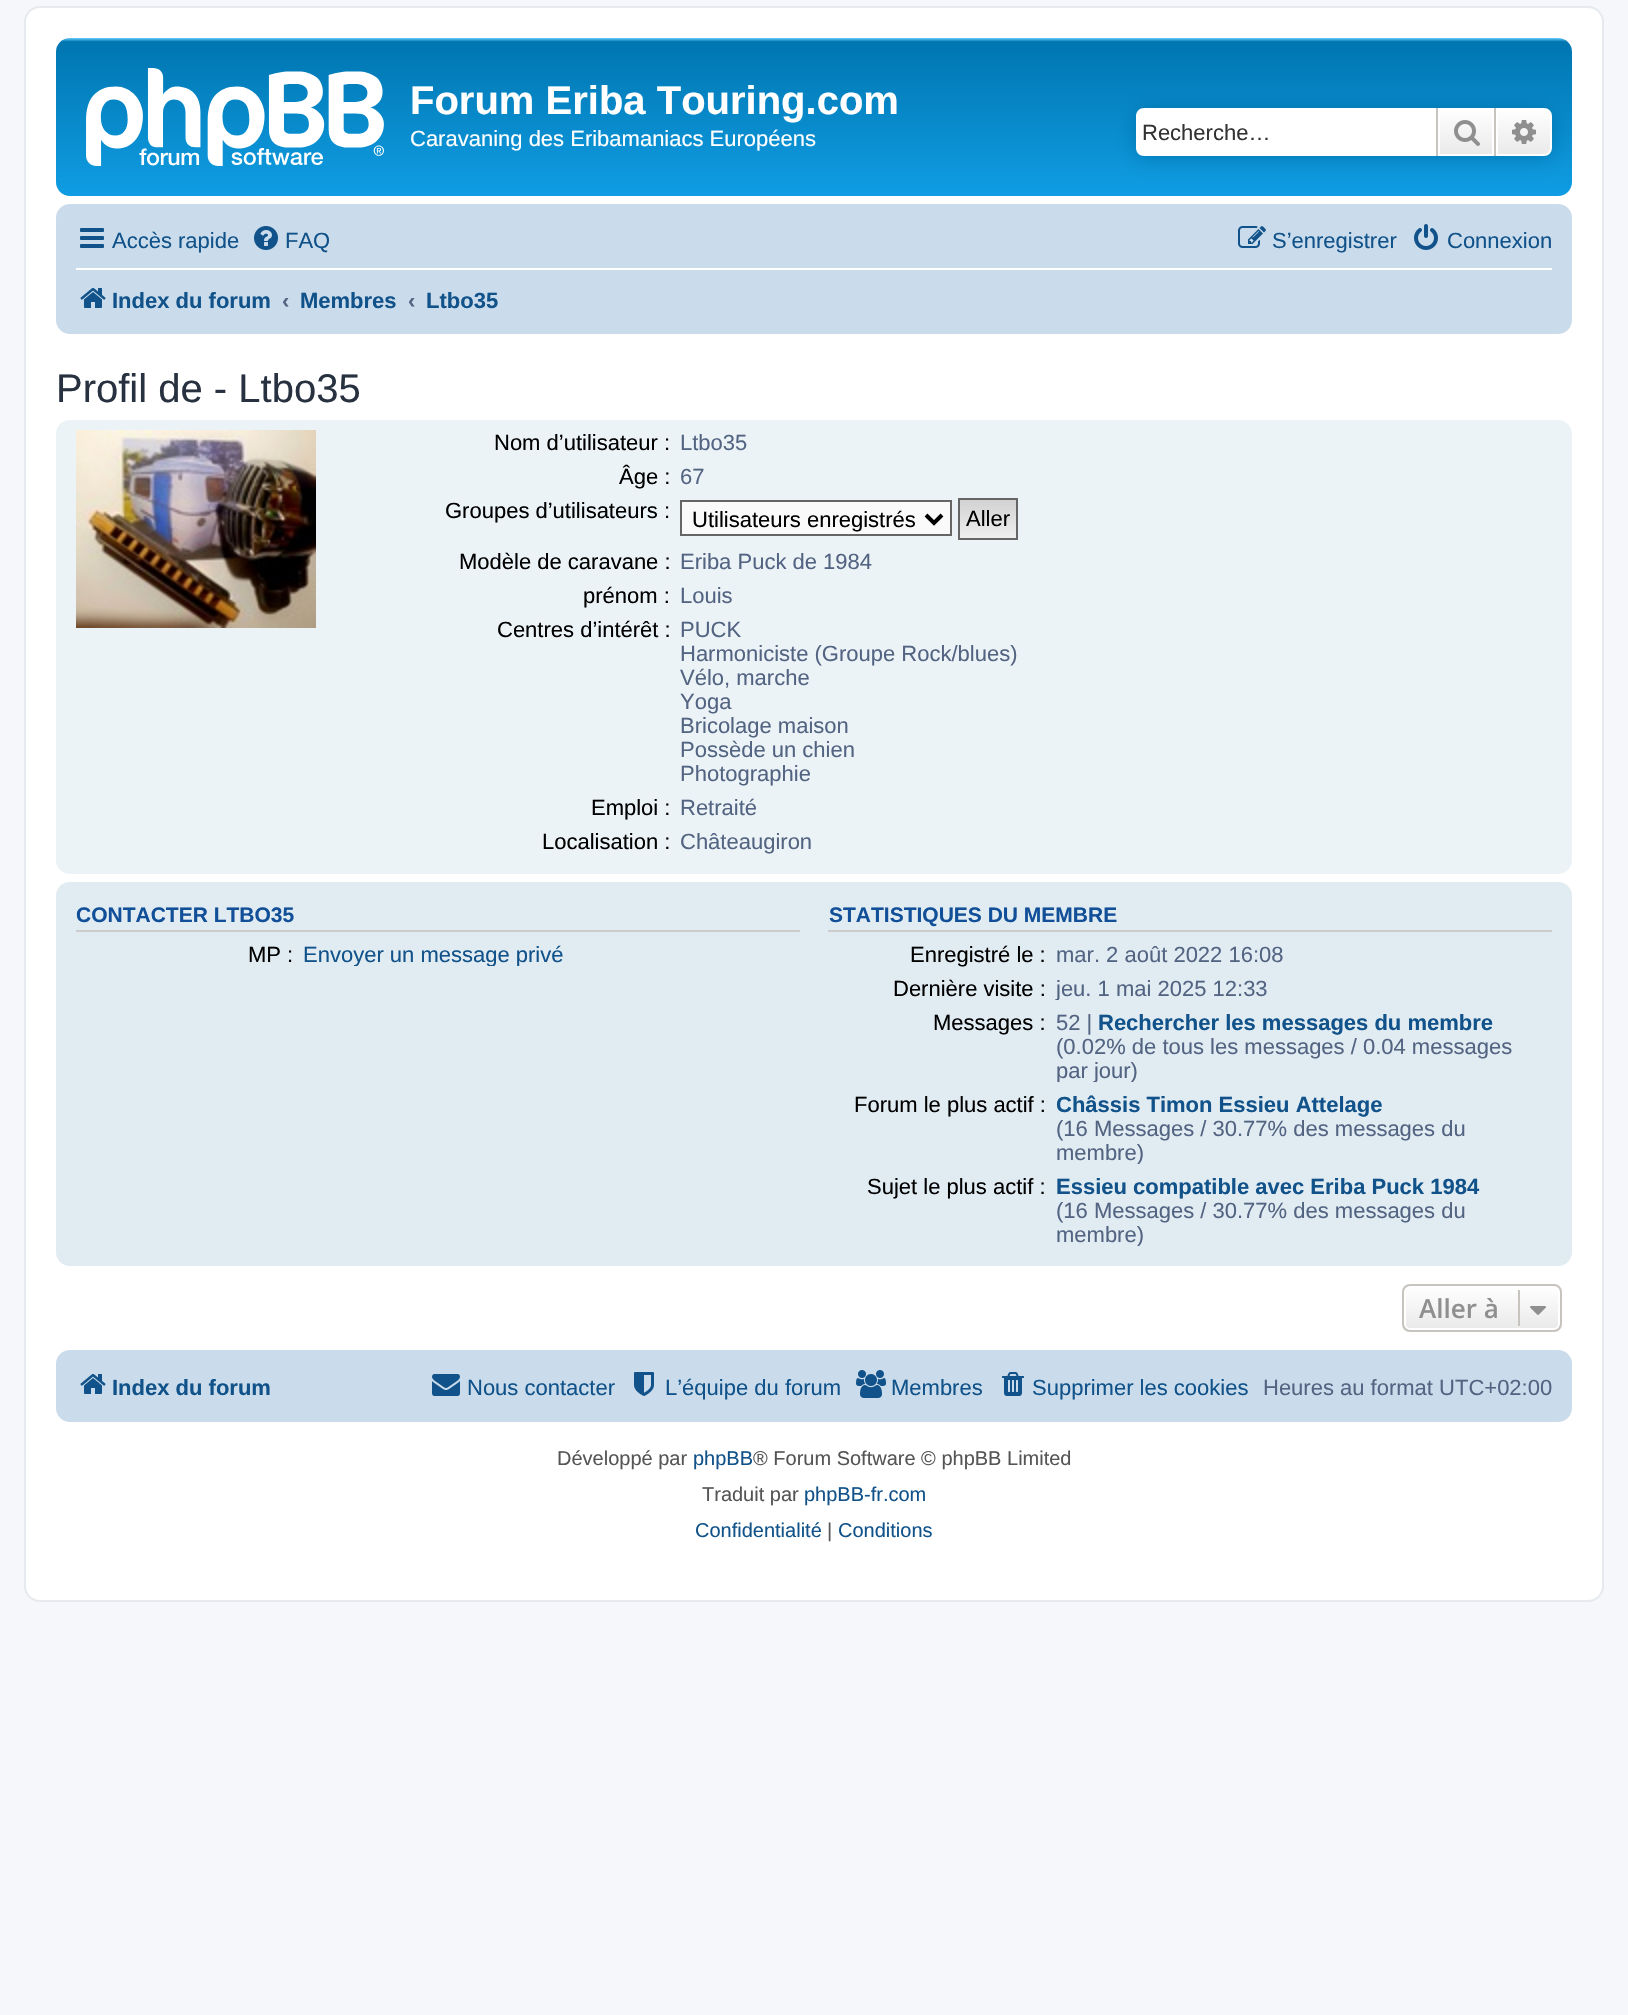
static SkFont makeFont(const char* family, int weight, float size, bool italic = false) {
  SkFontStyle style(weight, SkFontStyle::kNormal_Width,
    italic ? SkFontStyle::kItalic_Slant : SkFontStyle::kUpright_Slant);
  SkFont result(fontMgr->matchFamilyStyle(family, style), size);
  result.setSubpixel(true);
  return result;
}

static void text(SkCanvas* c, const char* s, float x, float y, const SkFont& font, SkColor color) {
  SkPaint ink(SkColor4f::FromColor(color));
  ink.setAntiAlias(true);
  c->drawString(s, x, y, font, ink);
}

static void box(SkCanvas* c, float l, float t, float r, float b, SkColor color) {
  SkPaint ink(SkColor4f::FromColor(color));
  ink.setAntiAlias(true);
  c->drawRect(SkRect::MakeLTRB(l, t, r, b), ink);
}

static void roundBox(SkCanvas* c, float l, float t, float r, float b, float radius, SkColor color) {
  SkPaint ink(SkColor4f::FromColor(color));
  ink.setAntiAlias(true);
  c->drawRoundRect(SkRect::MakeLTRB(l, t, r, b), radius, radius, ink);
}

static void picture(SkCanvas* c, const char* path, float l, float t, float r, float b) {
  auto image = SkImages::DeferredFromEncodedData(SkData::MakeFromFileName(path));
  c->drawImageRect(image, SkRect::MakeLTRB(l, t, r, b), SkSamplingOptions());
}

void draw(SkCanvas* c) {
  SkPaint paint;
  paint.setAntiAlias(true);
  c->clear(0xfff5f7fa);
  paint.setColor(0xffffffff);
  c->drawRoundRect(SkRect::MakeLTRB(25, 7, 1603, 1601), 15, 15, paint);
  paint.setStyle(SkPaint::kStroke_Style);
  paint.setStrokeWidth(2);
  paint.setColor(0xffe6e9ed);
  c->drawRoundRect(SkRect::MakeLTRB(25, 7, 1603, 1601), 15, 15, paint);
  paint.setStyle(SkPaint::kFill_Style);
  {
    const SkColor colors[] = {0xff6aceff, 0xff0076b1, 0xff12a3eb};
    const float stops[] = {0, 0.02f, 1};
    const SkPoint ends[] = {{814, 38}, {814, 222}};
    paint.setShader(SkGradientShader::MakeLinear(ends, colors, stops, 3, SkTileMode::kClamp));
    paint.setAlpha(255);
  }
  c->drawRoundRect(SkRect::MakeLTRB(56, 38, 1572, 196), 14, 14, paint);
  picture(c, "img_01.png", 86, 68, 384, 166);
  SkFont face1 = makeFont("Liberation Sans", 700, 40);
  text(c, "Forum Eriba Touring.com", 410, 114, face1, 0xffffffff);
  SkFont face2 = makeFont("Liberation Sans", 400, 22);
  text(c, "Caravaning des Eribamaniacs Européens", 410, 146, face2, 0xffffffff);
  paint.setShader(nullptr);
  paint.setColor(0xff0075b0);
  paint.setMaskFilter(SkMaskFilter::MakeBlur(kNormal_SkBlurStyle, 10));
  c->drawRoundRect(SkRect::MakeLTRB(1136, 108, 1552, 156), 8, 8, paint);
  paint.setMaskFilter(nullptr);
  paint.setColor(0xffffffff);
  c->drawPath(SkPathBuilder().moveTo(1144, 108).lineTo(1436, 108).lineTo(1436, 156).lineTo(1144, 156).cubicTo(1139.5f, 156, 1136, 152.5f, 1136, 148).lineTo(1136, 116).cubicTo(1136, 111.5f, 1139.5f, 108, 1144, 108).close().detach(), paint);
  text(c, "Recherche…", 1142, 140, face2, 0xff333333);
  {
    const SkColor colors[] = {0xffffffff, 0xffe9e9e9};
    const float stops[] = {0, 1};
    const SkPoint ends[] = {{1466, 108}, {1466, 156}};
    paint.setShader(SkGradientShader::MakeLinear(ends, colors, stops, 2, SkTileMode::kClamp));
    paint.setAlpha(255);
  }
  c->drawRect(SkRect::MakeLTRB(1440, 110, 1492, 154), paint);
  paint.setStyle(SkPaint::kStroke_Style);
  paint.setShader(nullptr);
  paint.setColor(0xffffffff);
  c->drawRect(SkRect::MakeLTRB(1439, 109, 1493, 155), paint);
  box(c, 1494, 108, 1496, 156, 0xffc7c3bf);
  box(c, 1436, 108, 1438, 156, 0xffc7c3bf);
  picture(c, "img_02.png", 1454, 120, 1480, 146);
  paint.setStyle(SkPaint::kFill_Style);
  {
    const SkColor colors[] = {0xffffffff, 0xffe9e9e9};
    const float stops[] = {0, 1};
    const SkPoint ends[] = {{1524, 108}, {1524, 156}};
    paint.setShader(SkGradientShader::MakeLinear(ends, colors, stops, 2, SkTileMode::kClamp));
    paint.setAlpha(255);
  }
  c->drawPath(SkPathBuilder().moveTo(1497, 109).lineTo(1544, 109).cubicTo(1548, 109, 1551, 112, 1551, 116).lineTo(1551, 148).cubicTo(1551, 152, 1548, 155, 1544, 155).lineTo(1497, 155).close().detach(), paint);
  paint.setStyle(SkPaint::kStroke_Style);
  paint.setShader(nullptr);
  paint.setColor(0xffffffff);
  c->drawPath(SkPathBuilder().moveTo(1497, 109).lineTo(1544, 109).cubicTo(1548, 109, 1551, 112, 1551, 116).lineTo(1551, 148).cubicTo(1551, 152, 1548, 155, 1544, 155).lineTo(1497, 155).close().detach(), paint);
  picture(c, "img_03.png", 1512, 120, 1536, 144);
  roundBox(c, 56, 204, 1572, 334, 14, 0xffcadceb);
  picture(c, "img_04.png", 80, 228, 104, 248);
  text(c, "Accès rapide", 112, 248, face2, 0xff105289);
  picture(c, "img_05.png", 254, 226, 278, 250);
  text(c, "FAQ", 285, 248, face2, 0xff105289);
  picture(c, "img_06.png", 1238, 226, 1266, 248);
  text(c, "S’enregistrer", 1272, 248, face2, 0xff105289);
  picture(c, "img_07.png", 1414, 224, 1438, 250);
  text(c, "Connexion", 1447, 248, face2, 0xff105289);
  box(c, 76, 268, 1552, 270, 0xffffffff);
  picture(c, "img_08.png", 80, 288, 106, 308);
  SkFont face3 = makeFont("Liberation Sans", 700, 22);
  text(c, "Index du forum", 112, 308, face3, 0xff105289);
  text(c, "‹", 282, 308, face3, 0xff536482);
  text(c, "Membres", 300, 308, face3, 0xff105289);
  text(c, "‹", 408, 308, face3, 0xff536482);
  text(c, "Ltbo35", 426, 308, face3, 0xff105289);
  SkFont face4 = makeFont("Liberation Sans", 400, 40);
  text(c, "Profil de - Ltbo35", 56, 402, face4, 0xff28313f);
  roundBox(c, 56, 420, 1572, 874, 14, 0xffecf3f7);
  picture(c, "img_09.png", 76, 430, 316, 628);
  text(c, "Nom d’utilisateur :", 494, 450, face2, 0xff000000);
  text(c, "Ltbo35", 680, 450, face2, 0xff536482);
  text(c, "Âge :", 619, 484, face2, 0xff000000);
  text(c, "67", 680, 484, face2, 0xff536482);
  text(c, "Groupes d’utilisateurs :", 445, 518, face2, 0xff000000);
  paint.setStyle(SkPaint::kFill_Style);
  paint.setColor(0xfffafafa);
  c->drawRect(SkRect::MakeLTRB(681, 501, 951, 535), paint);
  paint.setStyle(SkPaint::kStroke_Style);
  paint.setColor(0xff666666);
  c->drawRect(SkRect::MakeLTRB(681, 501, 951, 535), paint);
  paint.setStrokeWidth(4);
  paint.setColor(0xff000000);
  c->drawPath(SkPathBuilder().moveTo(926, 515).lineTo(934, 523).lineTo(942, 515).detach(), paint);
  text(c, "Utilisateurs enregistrés", 692, 527, face2, 0xff000000);
  paint.setStyle(SkPaint::kFill_Style);
  {
    const SkColor colors[] = {0xffd2d2d2, 0xffefefef};
    const float stops[] = {0, 1};
    const SkPoint ends[] = {{988, 500}, {988, 538}};
    paint.setShader(SkGradientShader::MakeLinear(ends, colors, stops, 2, SkTileMode::kClamp));
    paint.setAlpha(255);
  }
  c->drawRect(SkRect::MakeLTRB(960, 500, 1016, 538), paint);
  paint.setStyle(SkPaint::kStroke_Style);
  paint.setStrokeWidth(2);
  paint.setShader(nullptr);
  paint.setColor(0xff666666);
  c->drawRect(SkRect::MakeLTRB(959, 499, 1017, 539), paint);
  text(c, "Aller", 966, 526, face2, 0xff000000);
  text(c, "Modèle de caravane :", 459, 569, face2, 0xff000000);
  text(c, "Eriba Puck de 1984", 680, 569, face2, 0xff536482);
  text(c, "prénom :", 583, 603, face2, 0xff000000);
  text(c, "Louis", 680, 603, face2, 0xff536482);
  text(c, "Centres d’intérêt :", 497, 637, face2, 0xff000000);
  text(c, "PUCK", 680, 637, face2, 0xff536482);
  text(c, "Harmoniciste (Groupe Rock/blues)", 680, 661, face2, 0xff536482);
  text(c, "Vélo, marche", 680, 685, face2, 0xff536482);
  text(c, "Yoga", 680, 709, face2, 0xff536482);
  text(c, "Bricolage maison", 680, 733, face2, 0xff536482);
  text(c, "Possède un chien", 680, 757, face2, 0xff536482);
  text(c, "Photographie", 680, 781, face2, 0xff536482);
  text(c, "Emploi :", 591, 815, face2, 0xff000000);
  text(c, "Retraité", 680, 815, face2, 0xff536482);
  text(c, "Localisation :", 542, 849, face2, 0xff000000);
  text(c, "Châteaugiron", 680, 849, face2, 0xff536482);
  roundBox(c, 56, 882, 1572, 1266, 14, 0xffe1ebf2);
  box(c, 76, 930, 800, 932, 0xffcccccc);
  SkFont face5 = makeFont("Liberation Sans", 700, 21);
  text(c, "CONTACTER LTBO35", 76, 922, face5, 0xff115098);
  text(c, "MP :", 248, 962, face2, 0xff000000);
  c->save();
  c->clipRect(SkRect::MakeLTRB(292, 942, 774, 966));
  text(c, "Envoyer un message privé", 303, 962, face2, 0xff105289);
  c->restore();
  box(c, 828, 930, 1552, 932, 0xffcccccc);
  text(c, "STATISTIQUES DU MEMBRE", 829, 922, face5, 0xff115098);
  text(c, "Enregistré le :", 910, 962, face2, 0xff000000);
  text(c, "mar. 2 août 2022 16:08", 1056, 962, face2, 0xff536482);
  text(c, "Dernière visite :", 893, 996, face2, 0xff000000);
  c->save();
  c->clipRect(SkRect::MakeLTRB(1046, 976, 1526, 1000));
  text(c, "jeu. 1 mai 2025 12:33", 1056, 996, face2, 0xff536482);
  c->restore();
  text(c, "Messages :", 933, 1030, face2, 0xff000000);
  text(c, "52 |", 1056, 1030, face2, 0xff536482);
  text(c, "Rechercher les messages du membre", 1098, 1030, face3, 0xff105289);
  text(c, "(0.02% de tous les messages / 0.04 messages", 1056, 1054, face2, 0xff536482);
  c->save();
  c->clipRect(SkRect::MakeLTRB(1046, 1010, 1526, 1082));
  text(c, "par jour)", 1056, 1078, face2, 0xff536482);
  c->restore();
  text(c, "Forum le plus actif :", 854, 1112, face2, 0xff000000);
  text(c, "Châssis Timon Essieu Attelage", 1056, 1112, face3, 0xff105289);
  text(c, "(16 Messages / 30.77% des messages du", 1056, 1136, face2, 0xff536482);
  c->save();
  c->clipRect(SkRect::MakeLTRB(1046, 1092, 1526, 1164));
  text(c, "membre)", 1056, 1160, face2, 0xff536482);
  c->restore();
  text(c, "Sujet le plus actif :", 867, 1194, face2, 0xff000000);
  text(c, "Essieu compatible avec Eriba Puck 1984", 1056, 1194, face3, 0xff105289);
  text(c, "(16 Messages / 30.77% des messages du", 1056, 1218, face2, 0xff536482);
  c->save();
  c->clipRect(SkRect::MakeLTRB(1046, 1174, 1526, 1246));
  text(c, "membre)", 1056, 1242, face2, 0xff536482);
  c->restore();
  c->save();
  c->clipPath(SkPathBuilder().moveTo(1410, 1284).lineTo(1554, 1284).cubicTo(1558.5f, 1284, 1562, 1287.5f, 1562, 1292).lineTo(1562, 1324).cubicTo(1562, 1328.5f, 1558.5f, 1332, 1554, 1332).lineTo(1410, 1332).cubicTo(1405.5f, 1332, 1402, 1328.5f, 1402, 1324).lineTo(1402, 1292).cubicTo(1402, 1287.5f, 1405.5f, 1284, 1410, 1284).close().detach(), true);
  paint.setStyle(SkPaint::kFill_Style);
  {
    const SkColor colors[] = {0xffffffff, 0xffe9e9e9};
    const float stops[] = {0, 1};
    const SkPoint ends[] = {{1482, 1286}, {1482, 1330}};
    paint.setShader(SkGradientShader::MakeLinear(ends, colors, stops, 2, SkTileMode::kClamp));
    paint.setAlpha(255);
  }
  c->drawRect(SkRect::MakeLTRB(1402, 1286, 1562, 1330), paint);
  c->restore();
  paint.setStyle(SkPaint::kStroke_Style);
  paint.setShader(nullptr);
  paint.setColor(0xffffffff);
  c->drawRoundRect(SkRect::MakeLTRB(1405, 1287, 1559, 1329), 5, 5, paint);
  paint.setColor(0xffc7c3bf);
  c->drawRoundRect(SkRect::MakeLTRB(1403, 1285, 1561, 1331), 7, 7, paint);
  SkFont face6 = makeFont("Open Sans", 600, 26);
  text(c, "Aller à", 1419, 1318, face6, 0xff8f8f8f);
  box(c, 1518, 1290, 1520, 1326, 0xffc7c3bf);
  picture(c, "img_10.png", 1530, 1306, 1546, 1315);
  roundBox(c, 56, 1350, 1572, 1422, 14, 0xffcadceb);
  picture(c, "img_08.png", 80, 1374, 106, 1394);
  text(c, "Index du forum", 112, 1395, face3, 0xff105289);
  picture(c, "img_11.png", 432, 1374, 460, 1396);
  text(c, "Nous contacter", 467, 1395, face2, 0xff105289);
  picture(c, "img_12.png", 634, 1372, 654, 1396);
  text(c, "L’équipe du forum", 665, 1395, face2, 0xff105289);
  picture(c, "img_13.png", 856, 1370, 886, 1398);
  text(c, "Membres", 891, 1395, face2, 0xff105289);
  picture(c, "img_14.png", 1002, 1372, 1024, 1396);
  text(c, "Supprimer les cookies", 1032, 1395, face2, 0xff105289);
  text(c, "Heures au format UTC+02:00", 1263, 1395, face2, 0xff536482);
  SkFont face7 = makeFont("Liberation Sans", 400, 20);
  text(c, "Développé par", 557, 1465, face7, 0xff555555);
  text(c, "phpBB", 693, 1465, face7, 0xff105289);
  text(c, "® Forum Software © phpBB Limited", 753, 1465, face7, 0xff555555);
  text(c, "Traduit par", 702, 1501, face7, 0xff555555);
  text(c, "phpBB-fr.com", 804, 1501, face7, 0xff105289);
  text(c, "Confidentialité", 695, 1537, face7, 0xff105289);
  text(c, "|", 827, 1537, face7, 0xff555555);
  text(c, "Conditions", 838, 1537, face7, 0xff105289);
}
